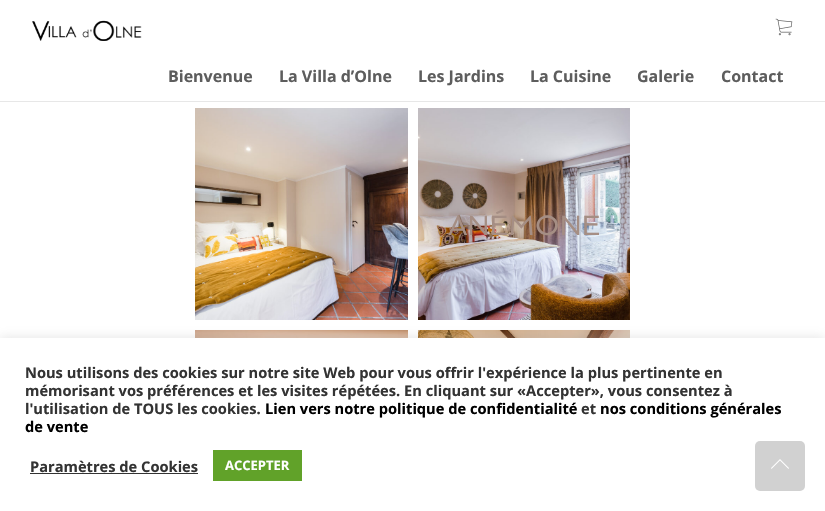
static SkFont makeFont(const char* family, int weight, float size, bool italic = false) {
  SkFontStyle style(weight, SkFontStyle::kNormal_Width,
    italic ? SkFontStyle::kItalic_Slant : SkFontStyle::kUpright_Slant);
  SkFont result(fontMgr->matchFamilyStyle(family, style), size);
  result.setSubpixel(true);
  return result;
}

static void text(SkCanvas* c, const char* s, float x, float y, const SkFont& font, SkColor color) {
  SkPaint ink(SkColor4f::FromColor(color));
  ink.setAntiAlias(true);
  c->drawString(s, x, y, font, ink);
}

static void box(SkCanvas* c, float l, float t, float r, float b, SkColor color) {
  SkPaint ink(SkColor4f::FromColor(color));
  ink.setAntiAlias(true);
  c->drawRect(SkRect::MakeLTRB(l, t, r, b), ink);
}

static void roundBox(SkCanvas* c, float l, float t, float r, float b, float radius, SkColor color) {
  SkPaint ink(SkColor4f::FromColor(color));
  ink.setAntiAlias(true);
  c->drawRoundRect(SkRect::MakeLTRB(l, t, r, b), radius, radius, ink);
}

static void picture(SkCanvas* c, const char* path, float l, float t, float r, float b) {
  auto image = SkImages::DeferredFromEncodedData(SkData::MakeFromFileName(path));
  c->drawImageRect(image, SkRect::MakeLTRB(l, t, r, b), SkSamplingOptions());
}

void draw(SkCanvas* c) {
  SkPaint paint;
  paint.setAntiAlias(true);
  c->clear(0xffffffff);
  box(c, 0, 101, 825, 102, 0xffe7e7e7);
  picture(c, "img_01.png", 32, 20, 142, 41);
  picture(c, "img_02.png", 775, 18, 793, 36);
  SkFont face1 = makeFont("Open Sans", 700, 16);
  text(c, "Bienvenue", 168, 82, face1, 0xff5d5d5d);
  text(c, "La Villa d’Olne", 279, 82, face1, 0xff5d5d5d);
  text(c, "Les Jardins", 418, 82, face1, 0xff5d5d5d);
  text(c, "La Cuisine", 530, 82, face1, 0xff5d5d5d);
  text(c, "Galerie", 637, 82, face1, 0xff5d5d5d);
  text(c, "Contact", 721, 82, face1, 0xff5d5d5d);
  picture(c, "img_03.png", 195, 108, 408, 320);
  picture(c, "img_04.png", 418, 108, 630, 320);
  SkFont face2 = makeFont("Spinnaker", 400, 28);
  text(c, "ANÉMONE", 448, 235, face2, 0xffa58e84);
  picture(c, "img_05.png", 195, 330, 408, 338);
  picture(c, "img_06.png", 418, 330, 630, 338);
  paint.setColor(0x4dacabab);
  paint.setMaskFilter(SkMaskFilter::MakeBlur(kNormal_SkBlurStyle, 5));
  c->drawRect(SkRect::MakeLTRB(0, 337, 825, 510), paint);
  paint.setMaskFilter(nullptr);
  box(c, 0, 338, 825, 511, 0xffffffff);
  SkFont face3 = makeFont("Open Sans", 700, 14.65f);
  text(c, "Nous utilisons des cookies sur notre site Web pour vous offrir l'expérience la plus pertinente en", 25, 378, face3, 0xff333333);
  text(c, "mémorisant vos préférences et les visites répétées. En cliquant sur «Accepter», vous consentez à", 25, 396, face3, 0xff333333);
  text(c, "l'utilisation de TOUS les cookies.", 25, 414, face3, 0xff333333);
  text(c, "Lien vers notre politique de confidentialité", 265, 414, face3, 0xff000000);
  text(c, "et", 581, 414, face3, 0xff333333);
  text(c, "nos conditions générales", 600, 414, face3, 0xff000000);
  text(c, "de vente", 25, 432, face3, 0xff000000);
  text(c, "Paramètres de Cookies", 30, 472, face3, 0xff333333);
  box(c, 30, 473, 198, 474, 0xff333333);
  box(c, 213, 450, 302, 481, 0xff61a229);
  SkFont face4 = makeFont("Open Sans", 700, 13);
  text(c, "ACCEPTER", 225, 470, face4, 0xffffffff);
  roundBox(c, 755, 441, 805, 491, 5, 0xffd1d1d1);
  paint.setColor(0xffffffff);
  c->drawPath(SkPathBuilder().moveTo(771.5f, 469).lineTo(780, 460.5f).lineTo(788.5f, 469).lineTo(789, 468).lineTo(780, 459).lineTo(771, 468).close().detach(), paint);
}
